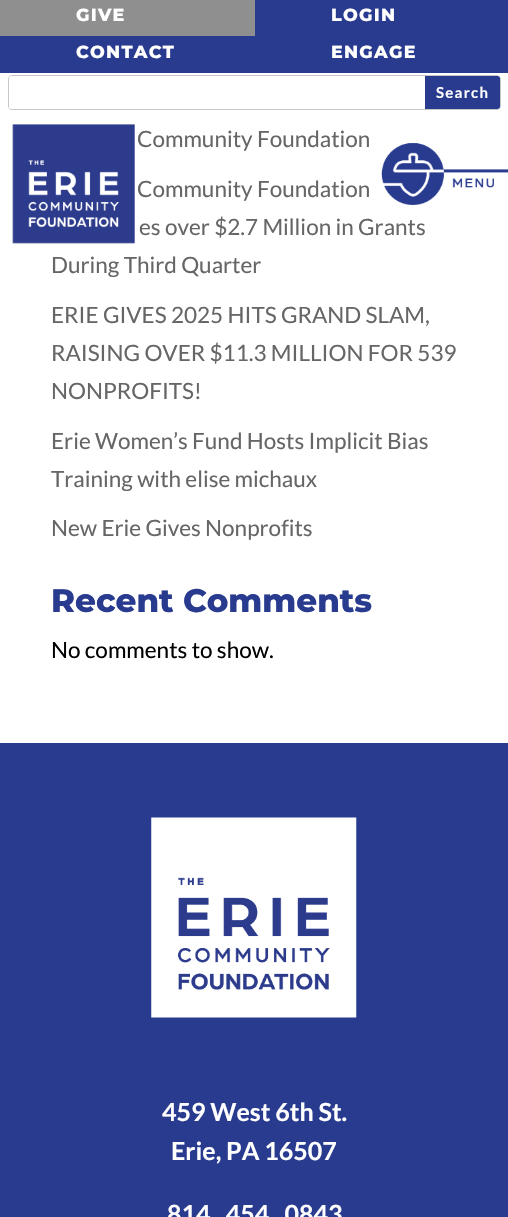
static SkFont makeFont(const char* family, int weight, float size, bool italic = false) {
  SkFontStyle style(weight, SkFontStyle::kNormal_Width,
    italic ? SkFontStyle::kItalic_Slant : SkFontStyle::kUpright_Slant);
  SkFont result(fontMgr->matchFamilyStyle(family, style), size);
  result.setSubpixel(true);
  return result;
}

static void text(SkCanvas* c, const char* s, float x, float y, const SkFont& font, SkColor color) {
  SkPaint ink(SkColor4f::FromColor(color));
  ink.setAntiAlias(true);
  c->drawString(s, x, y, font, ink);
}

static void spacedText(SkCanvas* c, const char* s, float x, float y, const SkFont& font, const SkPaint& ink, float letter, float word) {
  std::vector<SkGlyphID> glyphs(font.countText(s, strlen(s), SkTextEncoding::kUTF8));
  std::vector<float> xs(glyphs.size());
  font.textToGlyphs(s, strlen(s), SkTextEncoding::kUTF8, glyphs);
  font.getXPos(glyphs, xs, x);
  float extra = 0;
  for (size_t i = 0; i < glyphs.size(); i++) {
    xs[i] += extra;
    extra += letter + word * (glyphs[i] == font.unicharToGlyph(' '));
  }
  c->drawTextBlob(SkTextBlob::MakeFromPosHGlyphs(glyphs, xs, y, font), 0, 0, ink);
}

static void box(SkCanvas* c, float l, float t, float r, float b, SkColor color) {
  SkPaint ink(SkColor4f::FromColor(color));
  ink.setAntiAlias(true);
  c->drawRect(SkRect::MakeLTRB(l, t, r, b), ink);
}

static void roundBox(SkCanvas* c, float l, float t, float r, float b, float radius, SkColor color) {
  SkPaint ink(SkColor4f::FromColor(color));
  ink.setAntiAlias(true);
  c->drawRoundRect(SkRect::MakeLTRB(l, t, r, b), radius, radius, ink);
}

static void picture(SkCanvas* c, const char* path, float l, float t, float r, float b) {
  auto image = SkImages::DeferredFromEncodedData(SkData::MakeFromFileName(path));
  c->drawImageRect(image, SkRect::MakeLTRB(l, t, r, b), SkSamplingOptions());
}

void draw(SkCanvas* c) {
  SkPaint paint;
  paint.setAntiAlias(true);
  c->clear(0xffffffff);
  box(c, 0, 0, 255, 36, 0xff8f8f8f);
  SkFont face1 = makeFont("Montserrat", 100, 17.5f);
  paint.setColor(0xffffffff);
  spacedText(c, "GIVE", 76, 21, face1, paint, 1.25f, 0);
  box(c, 0, 36, 255, 73, 0xff293b8f);
  spacedText(c, "CONTACT", 76, 58, face1, paint, 1.25f, 0);
  box(c, 255, 0, 508, 73, 0xff293b8f);
  spacedText(c, "LOGIN", 331, 21, face1, paint, 1.25f, 0);
  spacedText(c, "ENGAGE", 331, 58, face1, paint, 1.25f, 0);
  paint.setStyle(SkPaint::kStroke_Style);
  paint.setStrokeWidth(1);
  paint.setColor(0xffc6c6c6);
  c->drawRoundRect(SkRect::MakeLTRB(8.5f, 75.5f, 500.5f, 109.5f), 3.5f, 3.5f, paint);
  roundBox(c, 9, 76, 500, 109, 2.5f, 0xc9ffffff);
  paint.setStyle(SkPaint::kFill_Style);
  paint.setColor(0xff293b8f);
  c->drawPath(SkPathBuilder().moveTo(425, 76).lineTo(497.5f, 76).cubicTo(499, 76, 500, 77, 500, 78.5f).lineTo(500, 106.5f).cubicTo(500, 108, 499, 109, 497.5f, 109).lineTo(425, 109).close().detach(), paint);
  SkFont face2 = makeFont("Lato", 700, 15);
  paint.setColor(0xffffffff);
  spacedText(c, "Search", 436, 98, face2, paint, 1.25f, 0);
  picture(c, "img_01.png", 12, 124, 135, 244);
  picture(c, "img_02.png", 381, 143, 508, 205);
  SkFont face3 = makeFont("Lato", 400, 22.5f);
  text(c, "Community Foundation", 137, 147, face3, 0xff666666);
  text(c, "Community Foundation", 137, 197, face3, 0xff666666);
  text(c, "es over $2.7 Million in Grants", 139, 235, face3, 0xff666666);
  text(c, "During Third Quarter", 51, 273, face3, 0xff666666);
  text(c, "ERIE GIVES 2025 HITS GRAND SLAM,", 51, 323, face3, 0xff666666);
  text(c, "RAISING OVER $11.3 MILLION FOR 539", 51, 361, face3, 0xff666666);
  text(c, "NONPROFITS!", 51, 399, face3, 0xff666666);
  text(c, "Erie Women’s Fund Hosts Implicit Bias", 51, 449, face3, 0xff666666);
  text(c, "Training with elise michaux", 51, 487, face3, 0xff666666);
  text(c, "New Erie Gives Nonprofits", 51, 536, face3, 0xff666666);
  SkFont face4 = makeFont("Montserrat", 100, 32.5f);
  text(c, "Recent Comments", 51, 612, face4, 0xff293b8f);
  text(c, "No comments to show.", 51, 658, face3, 0xff000000);
  box(c, 0, 743, 508, 1217, 0xff293b8f);
  picture(c, "img_03.png", 151, 817, 357, 1018);
  SkFont face5 = makeFont("Lato", 700, 25);
  text(c, "459 West 6th St.", 162, 1121, face5, 0xffffffff);
  text(c, "Erie, PA 16507", 171, 1160, face5, 0xffffffff);
  text(c, "814 . 454 . 0843", 167, 1223, face5, 0xffffffff);
}
